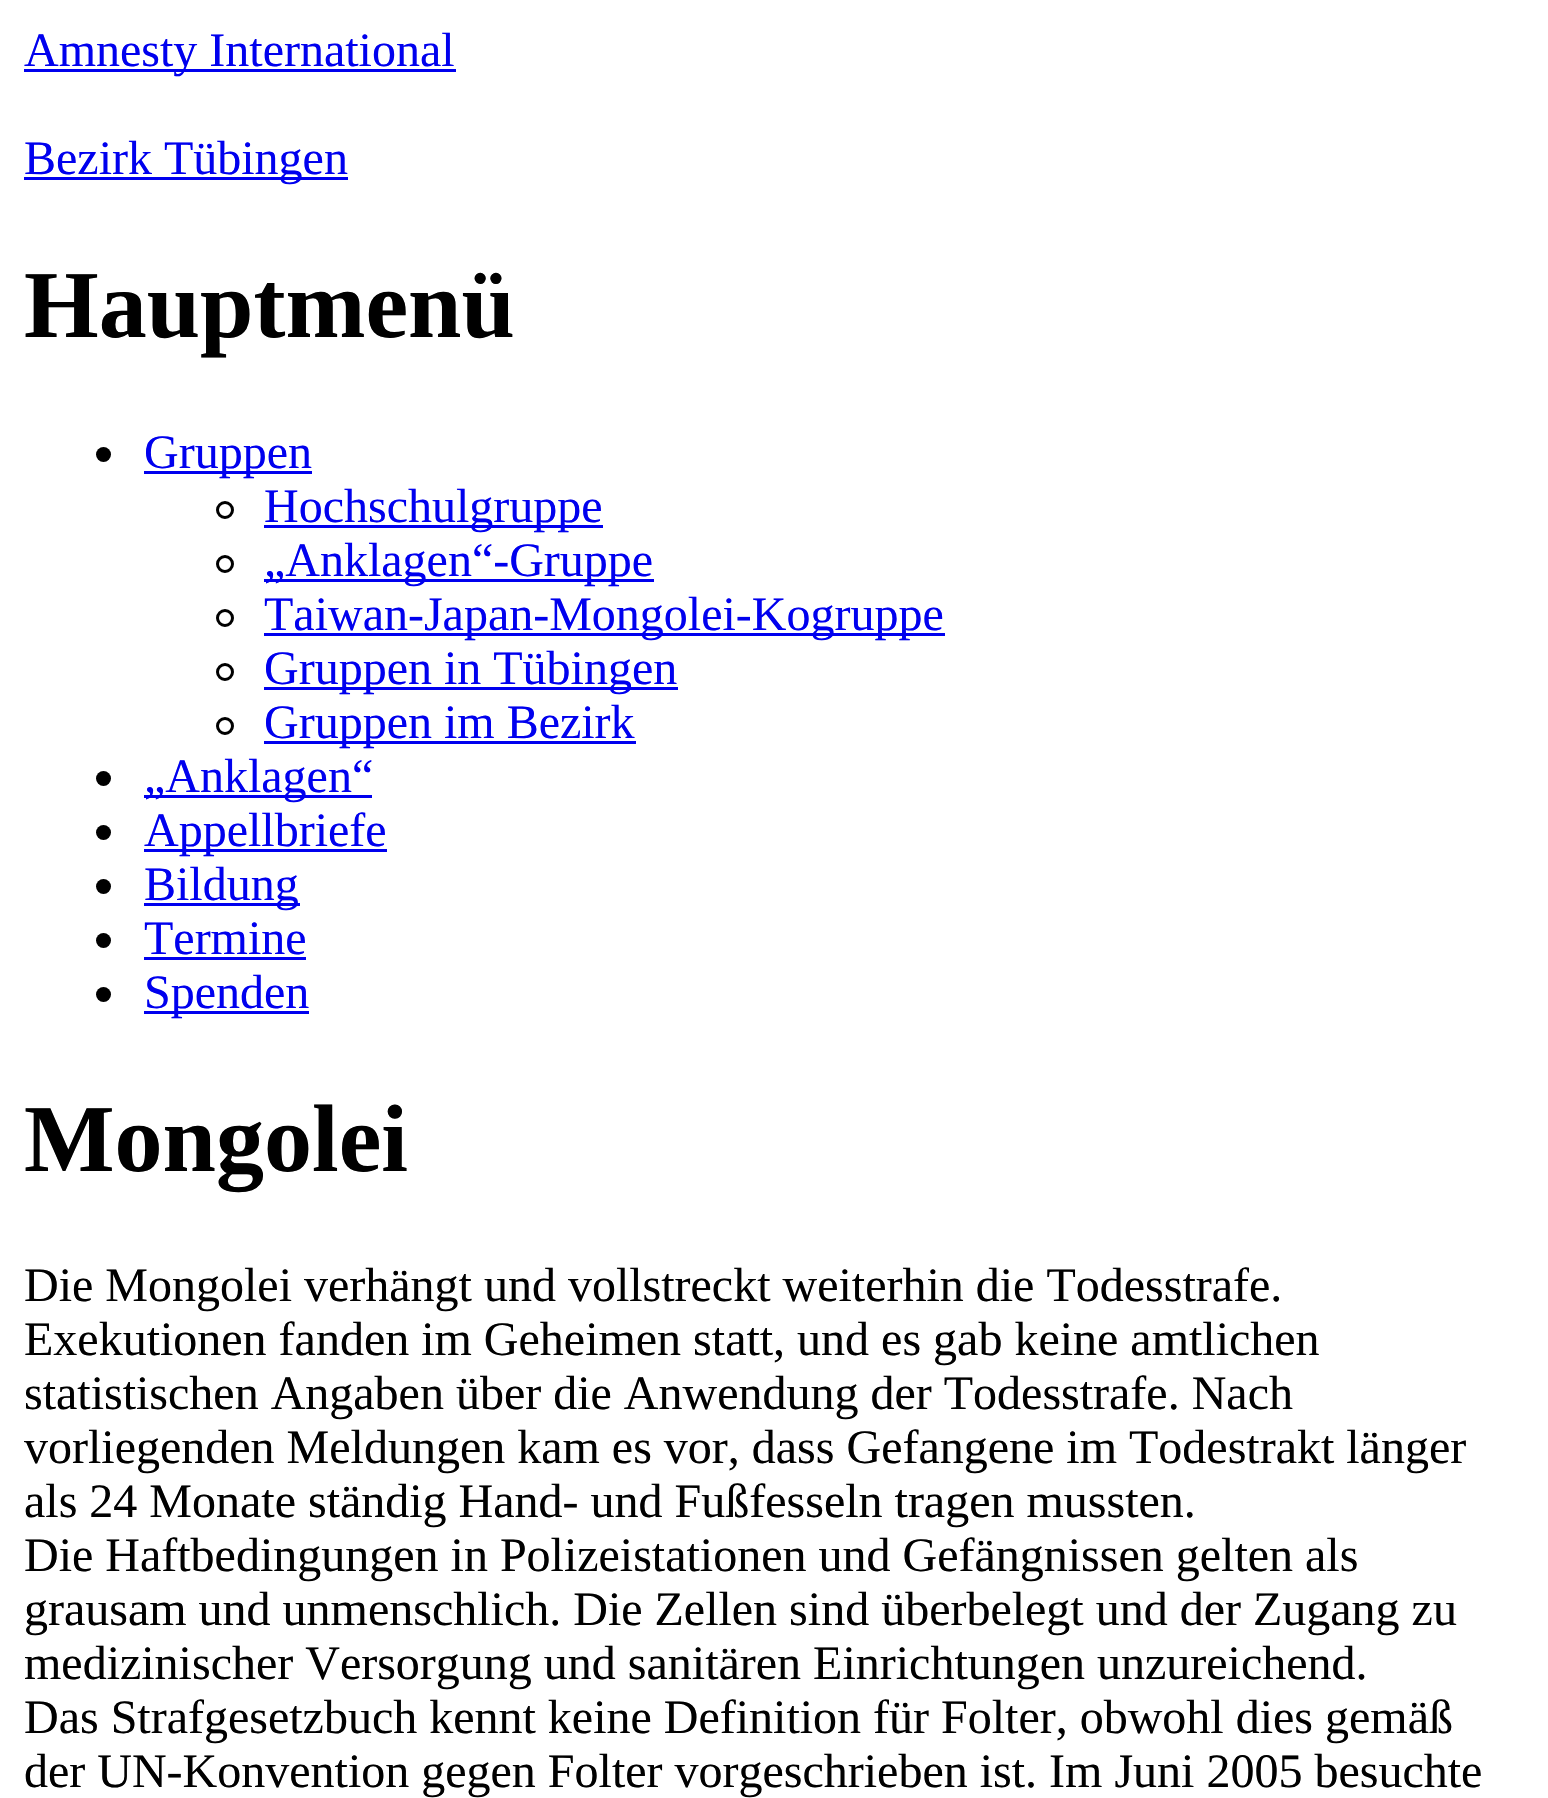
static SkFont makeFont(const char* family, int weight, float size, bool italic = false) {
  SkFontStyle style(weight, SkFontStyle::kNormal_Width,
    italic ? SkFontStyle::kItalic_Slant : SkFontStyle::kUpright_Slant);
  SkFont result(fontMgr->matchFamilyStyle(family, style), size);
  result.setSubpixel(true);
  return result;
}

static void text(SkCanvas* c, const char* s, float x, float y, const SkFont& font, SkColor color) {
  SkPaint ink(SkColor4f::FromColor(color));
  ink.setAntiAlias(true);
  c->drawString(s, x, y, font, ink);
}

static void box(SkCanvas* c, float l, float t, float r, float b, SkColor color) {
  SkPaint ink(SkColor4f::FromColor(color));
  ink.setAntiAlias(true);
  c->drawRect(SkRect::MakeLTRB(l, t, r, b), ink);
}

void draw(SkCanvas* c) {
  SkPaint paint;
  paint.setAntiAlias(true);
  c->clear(0xffffffff);
  box(c, 24, 69, 456, 72, 0xff0000ee);
  SkFont face1 = makeFont("Liberation Serif", 400, 48);
  text(c, "Amnesty International", 24, 66, face1, 0xff0000ee);
  box(c, 24, 177, 348, 180, 0xff0000ee);
  text(c, "Bezirk Tübingen", 24, 174, face1, 0xff0000ee);
  SkFont face2 = makeFont("Liberation Serif", 700, 96);
  text(c, "Hauptmenü", 24, 337, face2, 0xff000000);
  paint.setColor(0xff000000);
  c->drawCircle(103.5f, 454.5f, 7.5f, paint);
  box(c, 144, 471, 312, 474, 0xff0000ee);
  text(c, "Gruppen", 144, 468, face1, 0xff0000ee);
  paint.setStyle(SkPaint::kStroke_Style);
  paint.setStrokeWidth(3);
  c->drawCircle(225, 510, 7.5f, paint);
  box(c, 264, 525, 603, 528, 0xff0000ee);
  text(c, "Hochschulgruppe", 264, 522, face1, 0xff0000ee);
  c->drawCircle(225, 564, 7.5f, paint);
  box(c, 264, 579, 654, 582, 0xff0000ee);
  text(c, "„Anklagen“-Gruppe", 264, 576, face1, 0xff0000ee);
  c->drawCircle(225, 618, 7.5f, paint);
  box(c, 264, 633, 945, 636, 0xff0000ee);
  text(c, "Taiwan-Japan-Mongolei-Kogruppe", 264, 630, face1, 0xff0000ee);
  c->drawCircle(225, 672, 7.5f, paint);
  box(c, 264, 687, 678, 690, 0xff0000ee);
  text(c, "Gruppen in Tübingen", 264, 684, face1, 0xff0000ee);
  c->drawCircle(225, 726, 7.5f, paint);
  box(c, 264, 741, 636, 744, 0xff0000ee);
  text(c, "Gruppen im Bezirk", 264, 738, face1, 0xff0000ee);
  paint.setStyle(SkPaint::kFill_Style);
  c->drawCircle(103.5f, 778.5f, 7.5f, paint);
  box(c, 144, 795, 372, 798, 0xff0000ee);
  text(c, "„Anklagen“", 144, 792, face1, 0xff0000ee);
  c->drawCircle(103.5f, 832.5f, 7.5f, paint);
  box(c, 144, 849, 387, 852, 0xff0000ee);
  text(c, "Appellbriefe", 144, 846, face1, 0xff0000ee);
  c->drawCircle(103.5f, 886.5f, 7.5f, paint);
  box(c, 144, 903, 300, 906, 0xff0000ee);
  text(c, "Bildung", 144, 900, face1, 0xff0000ee);
  c->drawCircle(103.5f, 940.5f, 7.5f, paint);
  text(c, "Termine", 144, 954, face1, 0xff0000ee);
  box(c, 144, 957, 306, 960, 0xff0000ee);
  c->drawCircle(103.5f, 994.5f, 7.5f, paint);
  box(c, 144, 1011, 309, 1014, 0xff0000ee);
  text(c, "Spenden", 144, 1008, face1, 0xff0000ee);
  text(c, "Mongolei", 24, 1171, face2, 0xff000000);
  text(c, "Die Mongolei verhängt und vollstreckt weiterhin die Todesstrafe.", 24, 1301, face1, 0xff000000);
  text(c, "Exekutionen fanden im Geheimen statt, und es gab keine amtlichen", 24, 1355, face1, 0xff000000);
  text(c, "statistischen Angaben über die Anwendung der Todesstrafe. Nach", 24, 1409, face1, 0xff000000);
  text(c, "vorliegenden Meldungen kam es vor, dass Gefangene im Todestrakt länger", 24, 1463, face1, 0xff000000);
  text(c, "als 24 Monate ständig Hand- und Fußfesseln tragen mussten.", 24, 1517, face1, 0xff000000);
  text(c, "Die Haftbedingungen in Polizeistationen und Gefängnissen gelten als", 24, 1571, face1, 0xff000000);
  text(c, "grausam und unmenschlich. Die Zellen sind überbelegt und der Zugang zu", 24, 1625, face1, 0xff000000);
  text(c, "medizinischer Versorgung und sanitären Einrichtungen unzureichend.", 24, 1679, face1, 0xff000000);
  text(c, "Das Strafgesetzbuch kennt keine Definition für Folter, obwohl dies gemäß", 24, 1733, face1, 0xff000000);
  text(c, "der UN-Konvention gegen Folter vorgeschrieben ist. Im Juni 2005 besuchte", 24, 1787, face1, 0xff000000);
}
